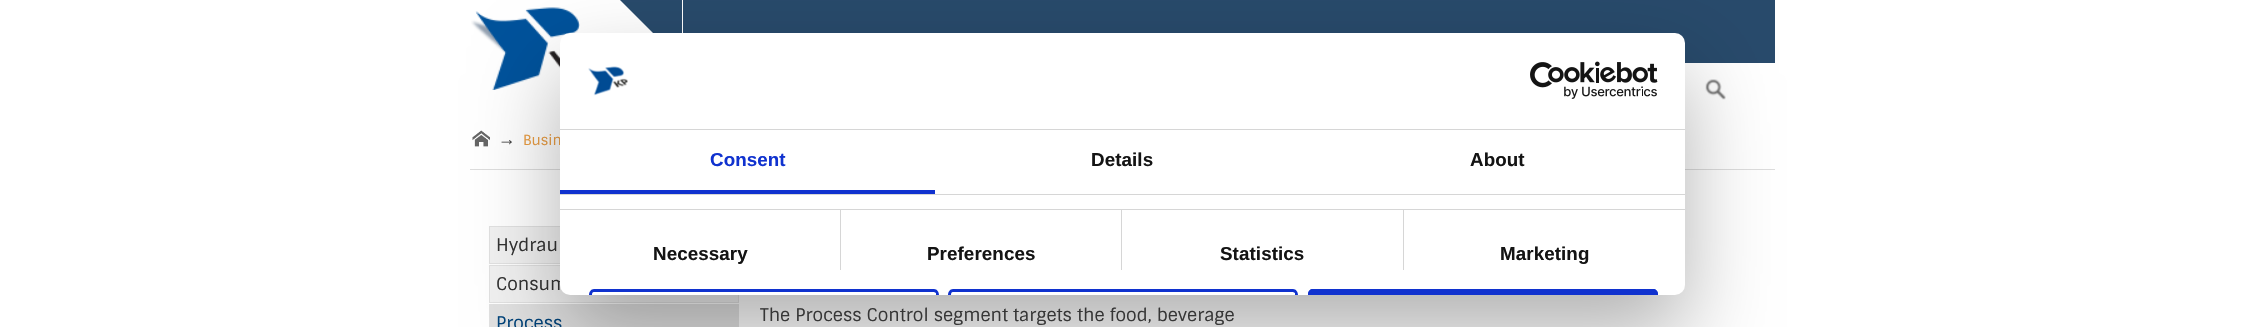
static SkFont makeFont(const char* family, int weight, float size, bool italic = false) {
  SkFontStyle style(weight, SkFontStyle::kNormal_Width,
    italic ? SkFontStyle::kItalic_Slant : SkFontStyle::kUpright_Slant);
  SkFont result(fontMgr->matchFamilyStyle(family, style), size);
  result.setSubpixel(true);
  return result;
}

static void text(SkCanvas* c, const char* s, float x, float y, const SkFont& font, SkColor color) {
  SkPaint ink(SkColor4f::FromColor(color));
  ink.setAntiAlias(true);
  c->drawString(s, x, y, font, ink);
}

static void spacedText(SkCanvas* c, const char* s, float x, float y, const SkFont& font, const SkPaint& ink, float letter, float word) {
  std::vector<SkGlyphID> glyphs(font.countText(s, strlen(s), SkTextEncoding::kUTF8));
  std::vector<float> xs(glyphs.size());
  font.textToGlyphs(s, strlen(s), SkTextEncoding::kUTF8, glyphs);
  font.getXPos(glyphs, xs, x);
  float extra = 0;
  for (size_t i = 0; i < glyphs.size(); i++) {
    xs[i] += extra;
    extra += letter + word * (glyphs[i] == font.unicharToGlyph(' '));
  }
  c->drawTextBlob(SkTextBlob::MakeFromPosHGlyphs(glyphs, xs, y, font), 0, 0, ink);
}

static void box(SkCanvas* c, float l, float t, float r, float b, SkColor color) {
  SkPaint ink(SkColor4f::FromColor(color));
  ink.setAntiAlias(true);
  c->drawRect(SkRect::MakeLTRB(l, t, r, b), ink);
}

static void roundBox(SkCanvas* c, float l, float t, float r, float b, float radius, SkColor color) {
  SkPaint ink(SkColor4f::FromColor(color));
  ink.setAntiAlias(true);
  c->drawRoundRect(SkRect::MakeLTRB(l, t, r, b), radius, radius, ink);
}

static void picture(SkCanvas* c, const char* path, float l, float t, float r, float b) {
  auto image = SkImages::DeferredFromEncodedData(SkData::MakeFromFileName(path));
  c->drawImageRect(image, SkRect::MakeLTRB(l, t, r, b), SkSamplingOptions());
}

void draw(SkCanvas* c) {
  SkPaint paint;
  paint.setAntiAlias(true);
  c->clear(0xffffffff);
  picture(c, "img_01.png", 471, 7, 580, 90);
  paint.setColor(0xff284a6b);
  c->drawPath(SkPathBuilder().moveTo(620, 0).lineTo(682, 0).lineTo(682, 62).close().detach(), paint);
  box(c, 683, 0, 1775, 63, 0xff284a6b);
  picture(c, "img_02.png", 1705, 79, 1726, 100);
  picture(c, "img_03.png", 472, 130, 490, 147);
  SkFont face1 = makeFont("Liberation Sans", 400, 17.5f);
  text(c, "→", 498, 145, face1, 0xff444444);
  SkFont face2 = makeFont("Sintony", 400, 14);
  text(c, "Busin", 523, 145, face2, 0xffea9d43);
  box(c, 470, 169, 1775, 170, 0xffdddddd);
  box(c, 490, 227, 560, 263, 0xfff1f1f1);
  paint.setStyle(SkPaint::kStroke_Style);
  paint.setStrokeWidth(1);
  paint.setColor(0xffe1e1e1);
  c->drawRect(SkRect::MakeLTRB(489.5f, 226.5f, 738.5f, 263.5f), paint);
  SkFont face3 = makeFont("Sintony", 400, 17.5f);
  text(c, "Hydrau", 496, 251, face3, 0xff333333);
  paint.setStyle(SkPaint::kFill_Style);
  paint.setColor(0xfff1f1f1);
  c->drawRect(SkRect::MakeLTRB(489.5f, 265.5f, 738.5f, 302.5f), paint);
  paint.setStyle(SkPaint::kStroke_Style);
  paint.setColor(0xffe1e1e1);
  c->drawRect(SkRect::MakeLTRB(489.5f, 265.5f, 738.5f, 302.5f), paint);
  text(c, "Consum", 496, 290, face3, 0xff333333);
  box(c, 489, 304, 739, 327, 0xffe1e1e1);
  text(c, "Process", 496, 329, face3, 0xff01437a);
  text(c, "The Process Control segment targets the food, beverage", 760, 321, face3, 0xff444444);
  paint.setStyle(SkPaint::kFill_Style);
  paint.setColor(0x4d000000);
  paint.setMaskFilter(SkMaskFilter::MakeBlur(kNormal_SkBlurStyle, 42.5f));
  c->drawRoundRect(SkRect::MakeLTRB(560, 73, 1685, 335), 10, 10, paint);
  paint.setMaskFilter(nullptr);
  roundBox(c, 560, 33, 1685, 295, 10, 0xffffffff);
  box(c, 560, 129, 1685, 130, 0xffd6d6d6);
  picture(c, "img_04.png", 588, 66, 628, 96);
  picture(c, "img_05.png", 1530, 61, 1658, 99);
  box(c, 560, 194, 1685, 195, 0xffd6d6d6);
  box(c, 560, 190, 935, 194, 0xff1032cf);
  SkFont face4 = makeFont("Liberation Sans", 700, 18.75f);
  paint.setColor(0xff1032cf);
  spacedText(c, "Consent", 710, 166, face4, paint, 0.1f, 0);
  paint.setColor(0xff141414);
  spacedText(c, "Details", 1091, 166, face4, paint, 0.1f, 0);
  spacedText(c, "About", 1470, 166, face4, paint, 0.1f, 0);
  box(c, 560, 209, 1685, 210, 0xffd6d6d6);
  box(c, 840, 210, 841, 270, 0xffd6d6d6);
  spacedText(c, "Necessary", 653, 260, face4, paint, 0.1f, 0);
  box(c, 1121, 210, 1122, 270, 0xffd6d6d6);
  spacedText(c, "Preferences", 927, 260, face4, paint, 0.1f, 0);
  box(c, 1403, 210, 1404, 270, 0xffd6d6d6);
  spacedText(c, "Statistics", 1220, 260, face4, paint, 0.1f, 0);
  spacedText(c, "Marketing", 1500, 260, face4, paint, 0.1f, 0);
  paint.setColor(0xff1032cf);
  c->drawPath(SkPathBuilder().moveTo(594, 289).cubicTo(591, 289, 589, 292, 589, 295).lineTo(592, 295).cubicTo(592, 294, 592, 292, 594, 292).lineTo(934, 292).lineTo(936, 293).lineTo(936, 295).lineTo(939, 295).cubicTo(939, 292, 937, 289, 934, 289).close().detach(), paint);
  c->drawPath(SkPathBuilder().moveTo(953, 289).cubicTo(950, 289, 948, 292, 948, 295).lineTo(951, 295).cubicTo(951, 294, 951, 292, 953, 292).lineTo(1293, 292).lineTo(1295, 293).lineTo(1295, 295).lineTo(1298, 295).cubicTo(1298, 292, 1296, 289, 1293, 289).close().detach(), paint);
  c->drawPath(SkPathBuilder().moveTo(1313, 289).lineTo(1653, 289).cubicTo(1656, 289, 1658, 291, 1658, 294).lineTo(1658, 295).lineTo(1308, 295).lineTo(1308, 294).cubicTo(1308, 291, 1310, 289, 1313, 289).close().detach(), paint);
  c->drawPath(SkPathBuilder().moveTo(1313, 289).cubicTo(1310, 289, 1308, 292, 1308, 295).lineTo(1311, 295).cubicTo(1311, 294, 1311, 292, 1313, 292).lineTo(1653, 292).lineTo(1655, 293).lineTo(1655, 295).lineTo(1658, 295).cubicTo(1658, 292, 1656, 289, 1653, 289).close().detach(), paint);
}
